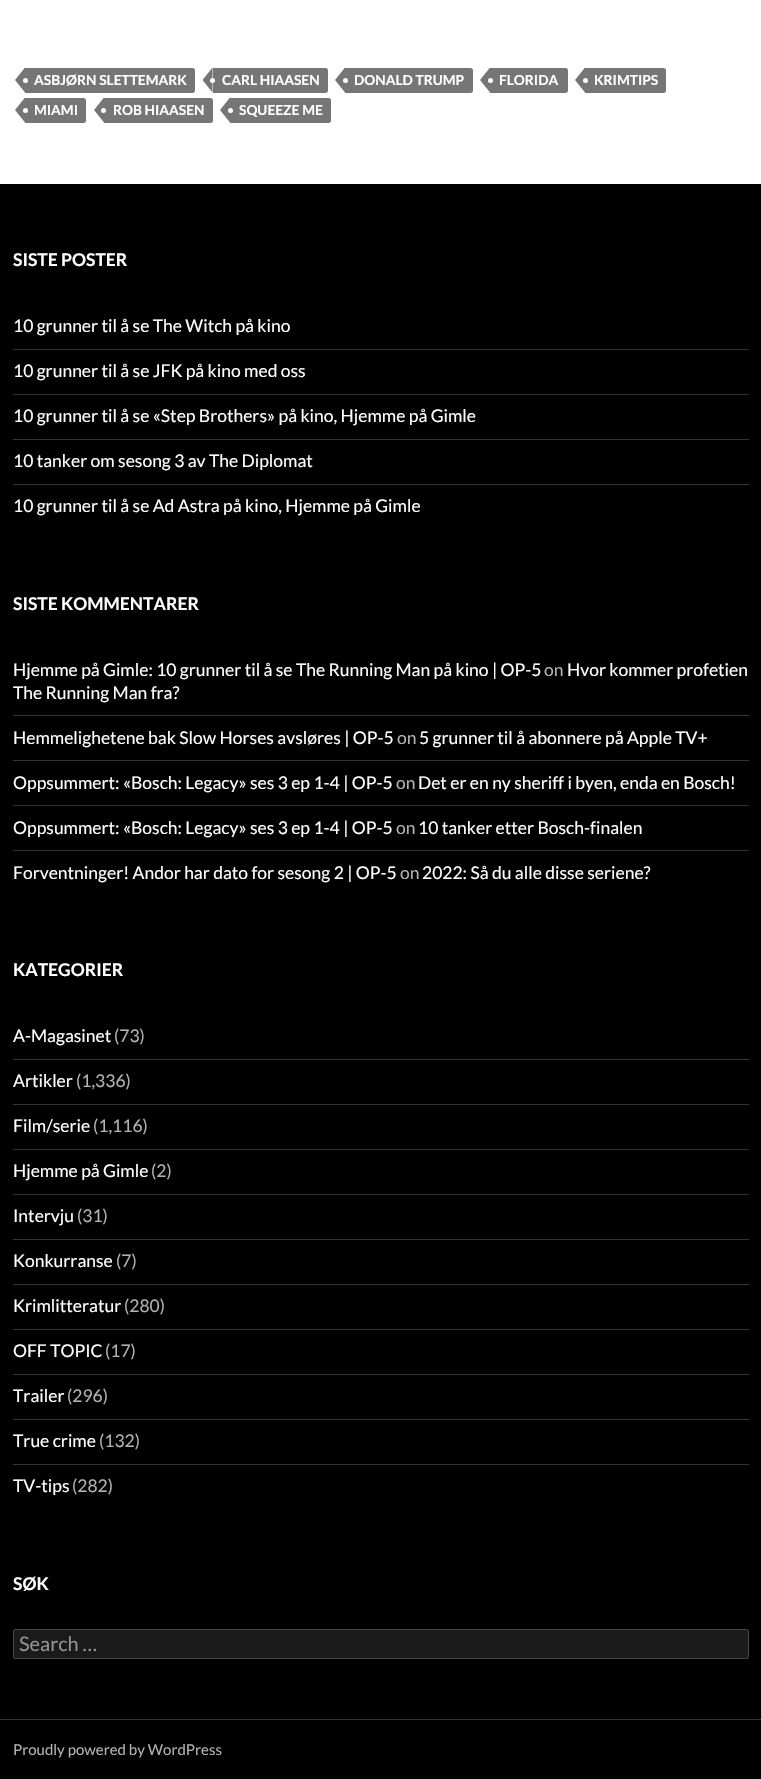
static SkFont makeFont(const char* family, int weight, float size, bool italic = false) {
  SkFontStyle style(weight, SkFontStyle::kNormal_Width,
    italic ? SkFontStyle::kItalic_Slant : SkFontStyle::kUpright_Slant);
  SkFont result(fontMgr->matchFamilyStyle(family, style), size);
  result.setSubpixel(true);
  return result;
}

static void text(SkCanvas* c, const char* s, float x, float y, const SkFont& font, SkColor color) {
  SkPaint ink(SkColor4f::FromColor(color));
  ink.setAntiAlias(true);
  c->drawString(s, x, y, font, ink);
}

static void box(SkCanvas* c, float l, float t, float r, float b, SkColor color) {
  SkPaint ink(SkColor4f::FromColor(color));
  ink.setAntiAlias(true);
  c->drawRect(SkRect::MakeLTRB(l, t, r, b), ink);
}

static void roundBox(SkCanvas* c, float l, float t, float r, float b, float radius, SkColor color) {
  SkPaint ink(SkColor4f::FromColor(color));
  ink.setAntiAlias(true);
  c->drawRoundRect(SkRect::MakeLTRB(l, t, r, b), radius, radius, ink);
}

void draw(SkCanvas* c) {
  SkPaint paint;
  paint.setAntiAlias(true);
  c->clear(0xffffffff);
  paint.setColor(0xff767676);
  c->drawPath(SkPathBuilder().moveTo(25, 68).lineTo(192.5f, 68).cubicTo(194, 68, 195, 69, 195, 70.5f).lineTo(195, 90.5f).cubicTo(195, 92, 194, 93, 192.5f, 93).lineTo(25, 93).close().detach(), paint);
  c->drawPath(SkPathBuilder().moveTo(25, 67.5f).lineTo(25, 92.5f).lineTo(15, 80).close().detach(), paint);
  paint.setColor(0xffffffff);
  c->drawCircle(25.5f, 80.5f, 2.5f, paint);
  SkFont face1 = makeFont("Lato", 700, 13.75f);
  text(c, "ASBJØRN SLETTEMARK", 34, 85, face1, 0xffffffff);
  paint.setColor(0xff767676);
  c->drawPath(SkPathBuilder().moveTo(213, 68).lineTo(325.5f, 68).cubicTo(327, 68, 328, 69, 328, 70.5f).lineTo(328, 90.5f).cubicTo(328, 92, 327, 93, 325.5f, 93).lineTo(213, 93).close().detach(), paint);
  c->drawPath(SkPathBuilder().moveTo(212.5f, 67.5f).lineTo(212.5f, 92.5f).lineTo(202.5f, 80).close().detach(), paint);
  text(c, "CARL HIAASEN", 222, 85, face1, 0xffffffff);
  paint.setColor(0xffffffff);
  c->drawCircle(212.5f, 80.5f, 2.5f, paint);
  paint.setColor(0xff767676);
  c->drawPath(SkPathBuilder().moveTo(345, 68).lineTo(470.5f, 68).cubicTo(472, 68, 473, 69, 473, 70.5f).lineTo(473, 90.5f).cubicTo(473, 92, 472, 93, 470.5f, 93).lineTo(345, 93).close().detach(), paint);
  c->drawPath(SkPathBuilder().moveTo(345, 67.5f).lineTo(345, 92.5f).lineTo(335, 80).close().detach(), paint);
  paint.setColor(0xffffffff);
  c->drawCircle(345.5f, 80.5f, 2.5f, paint);
  text(c, "DONALD TRUMP", 354, 85, face1, 0xffffffff);
  paint.setColor(0xff767676);
  c->drawPath(SkPathBuilder().moveTo(490, 68).lineTo(565.5f, 68).cubicTo(567, 68, 568, 69, 568, 70.5f).lineTo(568, 90.5f).cubicTo(568, 92, 567, 93, 565.5f, 93).lineTo(490, 93).close().detach(), paint);
  c->drawPath(SkPathBuilder().moveTo(490, 67.5f).lineTo(490, 92.5f).lineTo(480, 80).close().detach(), paint);
  paint.setColor(0xffffffff);
  c->drawCircle(490.5f, 80.5f, 2.5f, paint);
  text(c, "FLORIDA", 499, 85, face1, 0xffffffff);
  paint.setColor(0xff767676);
  c->drawPath(SkPathBuilder().moveTo(585, 68).lineTo(663.5f, 68).cubicTo(665, 68, 666, 69, 666, 70.5f).lineTo(666, 90.5f).cubicTo(666, 92, 665, 93, 663.5f, 93).lineTo(585, 93).close().detach(), paint);
  c->drawPath(SkPathBuilder().moveTo(585, 67.5f).lineTo(585, 92.5f).lineTo(575, 80).close().detach(), paint);
  paint.setColor(0xffffffff);
  c->drawCircle(585.5f, 80.5f, 2.5f, paint);
  text(c, "KRIMTIPS", 594, 85, face1, 0xffffffff);
  paint.setColor(0xff767676);
  c->drawPath(SkPathBuilder().moveTo(25, 98).lineTo(83.5f, 98).cubicTo(85, 98, 86, 99, 86, 100.5f).lineTo(86, 120.5f).cubicTo(86, 122, 85, 123, 83.5f, 123).lineTo(25, 123).close().detach(), paint);
  c->drawPath(SkPathBuilder().moveTo(25, 97.5f).lineTo(25, 122.5f).lineTo(15, 110).close().detach(), paint);
  paint.setColor(0xffffffff);
  c->drawCircle(25.5f, 110.5f, 2.5f, paint);
  text(c, "MIAMI", 34, 115, face1, 0xffffffff);
  paint.setColor(0xff767676);
  c->drawPath(SkPathBuilder().moveTo(104, 98).lineTo(210.5f, 98).cubicTo(212, 98, 213, 99, 213, 100.5f).lineTo(213, 120.5f).cubicTo(213, 122, 212, 123, 210.5f, 123).lineTo(104, 123).close().detach(), paint);
  c->drawPath(SkPathBuilder().moveTo(104, 97.5f).lineTo(104, 122.5f).lineTo(94, 110).close().detach(), paint);
  text(c, "ROB HIAASEN", 113, 115, face1, 0xffffffff);
  paint.setColor(0xffffffff);
  c->drawCircle(103.5f, 110.5f, 2.5f, paint);
  paint.setColor(0xff767676);
  c->drawPath(SkPathBuilder().moveTo(230, 98).lineTo(328.5f, 98).cubicTo(330, 98, 331, 99, 331, 100.5f).lineTo(331, 120.5f).cubicTo(331, 122, 330, 123, 328.5f, 123).lineTo(230, 123).close().detach(), paint);
  c->drawPath(SkPathBuilder().moveTo(230, 97.5f).lineTo(230, 122.5f).lineTo(220, 110).close().detach(), paint);
  paint.setColor(0xffffffff);
  c->drawCircle(230.5f, 110.5f, 2.5f, paint);
  text(c, "SQUEEZE ME", 239, 115, face1, 0xffffffff);
  box(c, 0, 184, 761, 1719, 0xff000000);
  box(c, 0, 1719, 761, 1720, 0xff333333);
  SkFont face2 = makeFont("Lato", 700, 17.5f);
  text(c, "SISTE POSTER", 13, 266, face2, 0xffffffff);
  SkFont face3 = makeFont("Lato", 400, 17.5f);
  text(c, "10 grunner til å se The Witch på kino", 13, 332, face3, 0xffffffff);
  box(c, 13, 349, 749, 350, 0xff333333);
  text(c, "10 grunner til å se JFK på kino med oss", 13, 377, face3, 0xffffffff);
  box(c, 13, 394, 749, 395, 0xff333333);
  text(c, "10 grunner til å se «Step Brothers» på kino, Hjemme på Gimle", 13, 422, face3, 0xffffffff);
  box(c, 13, 439, 749, 440, 0xff333333);
  text(c, "10 tanker om sesong 3 av The Diplomat", 13, 467, face3, 0xffffffff);
  box(c, 13, 484, 749, 485, 0xff333333);
  text(c, "10 grunner til å se Ad Astra på kino, Hjemme på Gimle", 13, 512, face3, 0xffffffff);
  text(c, "SISTE KOMMENTARER", 13, 610, face2, 0xffffffff);
  text(c, "Hjemme på Gimle: 10 grunner til å se The Running Man på kino | OP-5", 13, 676, face3, 0xffffffff);
  text(c, "on", 544, 676, face3, 0xffb3b3b3);
  text(c, "Hvor kommer profetien", 567, 676, face3, 0xffffffff);
  text(c, "The Running Man fra?", 13, 699, face3, 0xffffffff);
  box(c, 13, 715, 749, 716, 0xff333333);
  text(c, "Hemmelighetene bak Slow Horses avsløres | OP-5", 13, 744, face3, 0xffffffff);
  text(c, "on", 397, 744, face3, 0xffb3b3b3);
  text(c, "5 grunner til å abonnere på Apple TV+", 419, 744, face3, 0xffffffff);
  box(c, 13, 760, 749, 761, 0xff333333);
  text(c, "Oppsummert: «Bosch: Legacy» ses 3 ep 1-4 | OP-5", 13, 789, face3, 0xffffffff);
  text(c, "on", 396, 789, face3, 0xffb3b3b3);
  text(c, "Det er en ny sheriff i byen, enda en Bosch!", 418, 789, face3, 0xffffffff);
  box(c, 13, 805, 749, 806, 0xff333333);
  text(c, "Oppsummert: «Bosch: Legacy» ses 3 ep 1-4 | OP-5", 13, 834, face3, 0xffffffff);
  text(c, "on", 396, 834, face3, 0xffb3b3b3);
  text(c, "10 tanker etter Bosch-finalen", 418, 834, face3, 0xffffffff);
  box(c, 13, 850, 749, 851, 0xff333333);
  text(c, "Forventninger! Andor har dato for sesong 2 | OP-5", 13, 879, face3, 0xffffffff);
  text(c, "on", 400, 879, face3, 0xffb3b3b3);
  text(c, "2022: Så du alle disse seriene?", 422, 879, face3, 0xffffffff);
  text(c, "KATEGORIER", 13, 976, face2, 0xffffffff);
  text(c, "A-Magasinet", 13, 1042, face3, 0xffffffff);
  text(c, "(73)", 114, 1042, face3, 0xffb3b3b3);
  box(c, 13, 1059, 749, 1060, 0xff333333);
  text(c, "Artikler", 13, 1087, face3, 0xffffffff);
  text(c, "(1,336)", 76, 1087, face3, 0xffb3b3b3);
  box(c, 13, 1104, 749, 1105, 0xff333333);
  text(c, "Film/serie", 13, 1132, face3, 0xffffffff);
  text(c, "(1,116)", 93, 1132, face3, 0xffb3b3b3);
  box(c, 13, 1149, 749, 1150, 0xff333333);
  text(c, "Hjemme på Gimle", 13, 1177, face3, 0xffffffff);
  text(c, "(2)", 151, 1177, face3, 0xffb3b3b3);
  box(c, 13, 1194, 749, 1195, 0xff333333);
  text(c, "Intervju", 13, 1222, face3, 0xffffffff);
  text(c, "(31)", 77, 1222, face3, 0xffb3b3b3);
  box(c, 13, 1239, 749, 1240, 0xff333333);
  text(c, "Konkurranse", 13, 1267, face3, 0xffffffff);
  text(c, "(7)", 116, 1267, face3, 0xffb3b3b3);
  box(c, 13, 1284, 749, 1285, 0xff333333);
  text(c, "Krimlitteratur", 13, 1312, face3, 0xffffffff);
  text(c, "(280)", 124, 1312, face3, 0xffb3b3b3);
  box(c, 13, 1329, 749, 1330, 0xff333333);
  text(c, "OFF TOPIC", 13, 1357, face3, 0xffffffff);
  text(c, "(17)", 105, 1357, face3, 0xffb3b3b3);
  box(c, 13, 1374, 749, 1375, 0xff333333);
  text(c, "Trailer", 13, 1402, face3, 0xffffffff);
  text(c, "(296)", 67, 1402, face3, 0xffb3b3b3);
  box(c, 13, 1419, 749, 1420, 0xff333333);
  text(c, "True crime", 13, 1447, face3, 0xffffffff);
  text(c, "(132)", 99, 1447, face3, 0xffb3b3b3);
  box(c, 13, 1464, 749, 1465, 0xff333333);
  text(c, "TV-tips", 13, 1492, face3, 0xffffffff);
  text(c, "(282)", 72, 1492, face3, 0xffb3b3b3);
  text(c, "SØK", 13, 1590, face2, 0xffffffff);
  roundBox(c, 13, 1629, 749, 1659, 2.5f, 0xff1a1a1a);
  paint.setStyle(SkPaint::kStroke_Style);
  paint.setStrokeWidth(1);
  paint.setColor(0x33ffffff);
  c->drawRoundRect(SkRect::MakeLTRB(13.5f, 1629.5f, 748.5f, 1658.5f), 2, 2, paint);
  SkFont face4 = makeFont("Lato", 400, 20);
  text(c, "Search …", 19, 1651, face4, 0xff939393);
  box(c, 0, 1720, 761, 1779, 0xff000000);
  SkFont face5 = makeFont("Lato", 400, 15);
  text(c, "Proudly powered by WordPress", 13, 1755, face5, 0xffb3b3b3);
}
